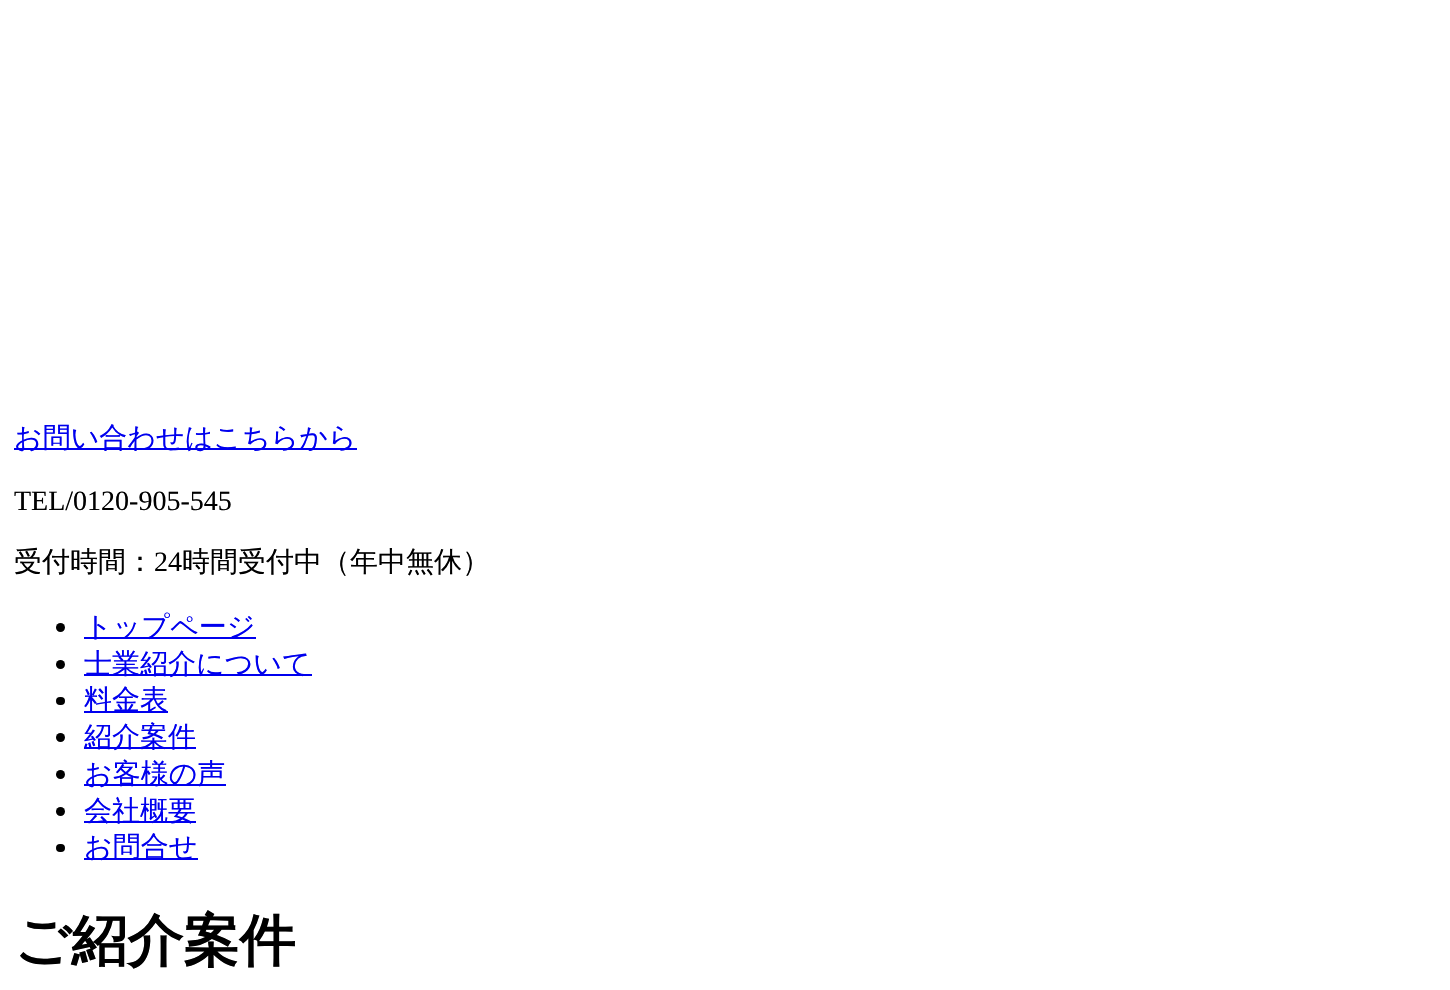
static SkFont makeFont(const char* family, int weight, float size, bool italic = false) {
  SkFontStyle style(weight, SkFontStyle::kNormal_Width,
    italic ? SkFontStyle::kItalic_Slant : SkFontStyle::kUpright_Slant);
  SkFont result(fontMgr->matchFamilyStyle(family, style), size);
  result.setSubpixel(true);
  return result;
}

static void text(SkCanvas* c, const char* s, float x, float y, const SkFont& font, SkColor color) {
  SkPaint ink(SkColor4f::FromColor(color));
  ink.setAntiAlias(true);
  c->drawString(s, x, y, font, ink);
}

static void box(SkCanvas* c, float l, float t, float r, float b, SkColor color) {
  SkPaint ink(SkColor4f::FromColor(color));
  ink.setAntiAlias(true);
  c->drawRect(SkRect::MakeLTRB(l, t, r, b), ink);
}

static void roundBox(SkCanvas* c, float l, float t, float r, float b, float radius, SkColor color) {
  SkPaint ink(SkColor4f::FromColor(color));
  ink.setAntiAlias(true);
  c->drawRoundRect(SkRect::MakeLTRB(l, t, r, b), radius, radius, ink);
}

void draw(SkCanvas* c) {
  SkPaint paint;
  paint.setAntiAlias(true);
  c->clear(0xffffffff);
  box(c, 14, 448, 357, 450, 0xff0000ee);
  SkFont face1 = makeFont("WenQuanYi Zen Hei", 500, 28);
  text(c, "お問い合わせはこちらから", 14, 447, face1, 0xff0000ee);
  SkFont face2 = makeFont("Liberation Serif", 400, 28);
  text(c, "TEL/0120-905-545", 14, 510, face2, 0xff000000);
  text(c, "受付時間：", 14, 571, face1, 0xff000000);
  text(c, "24", 154, 571, face2, 0xff000000);
  text(c, "時間受付中（年中無休）", 182, 571, face1, 0xff000000);
  paint.setColor(0xff000000);
  c->drawCircle(60.5f, 627.5f, 4.5f, paint);
  box(c, 84, 637, 256, 639, 0xff0000ee);
  text(c, "トップページ", 84, 636, face1, 0xff0000ee);
  c->drawCircle(60.5f, 664.5f, 4.5f, paint);
  box(c, 84, 674, 312, 676, 0xff0000ee);
  text(c, "士業紹介について", 84, 673, face1, 0xff0000ee);
  roundBox(c, 56, 697, 65, 705, 4, 0xff000000);
  box(c, 84, 711, 168, 713, 0xff0000ee);
  text(c, "料金表", 84, 709, face1, 0xff0000ee);
  c->drawCircle(60.5f, 737.5f, 4.5f, paint);
  box(c, 84, 747, 196, 749, 0xff0000ee);
  text(c, "紹介案件", 84, 746, face1, 0xff0000ee);
  c->drawCircle(60.5f, 774.5f, 4.5f, paint);
  box(c, 84, 784, 226, 786, 0xff0000ee);
  text(c, "お客様の声", 84, 783, face1, 0xff0000ee);
  c->drawCircle(60.5f, 811.5f, 4.5f, paint);
  box(c, 84, 821, 196, 823, 0xff0000ee);
  text(c, "会社概要", 84, 820, face1, 0xff0000ee);
  roundBox(c, 56, 844, 65, 852, 4, 0xff000000);
  box(c, 84, 858, 198, 860, 0xff0000ee);
  text(c, "お問合せ", 84, 856, face1, 0xff0000ee);
  SkFont face3 = makeFont("WenQuanYi Zen Hei", 700, 56);
  text(c, "ご紹介案件", 14, 960, face3, 0xff000000);
}
